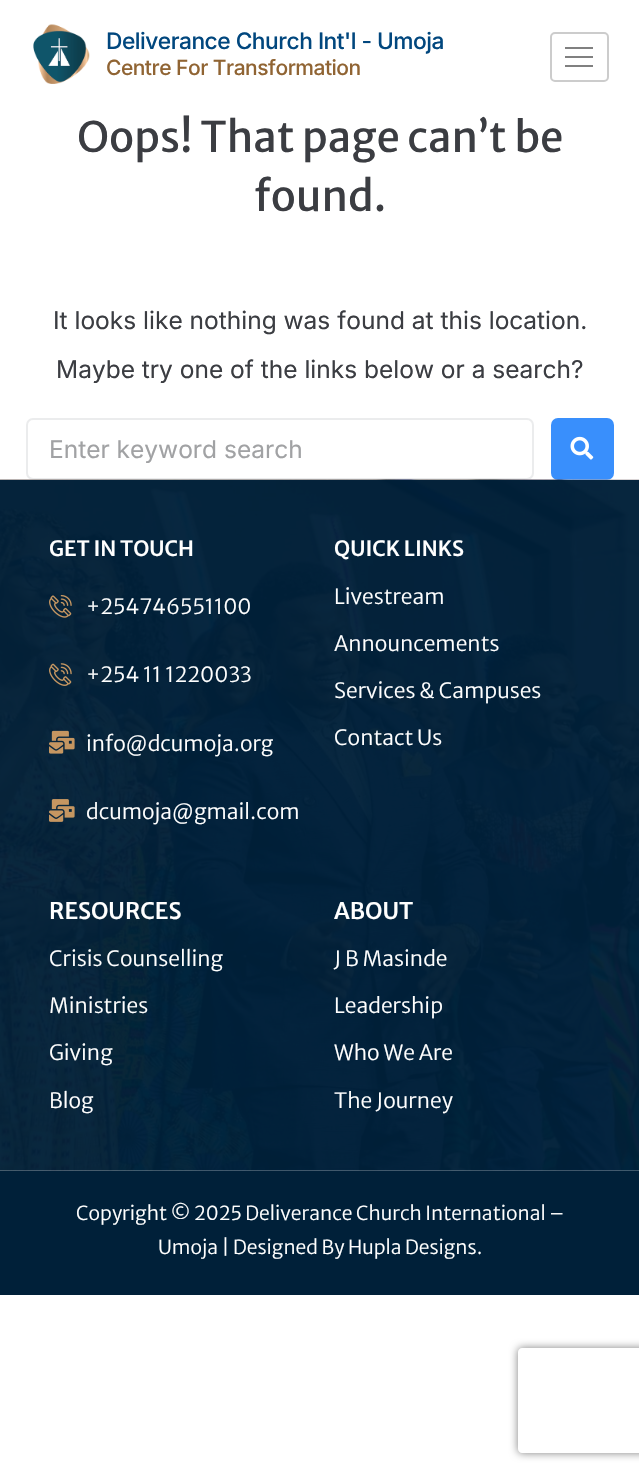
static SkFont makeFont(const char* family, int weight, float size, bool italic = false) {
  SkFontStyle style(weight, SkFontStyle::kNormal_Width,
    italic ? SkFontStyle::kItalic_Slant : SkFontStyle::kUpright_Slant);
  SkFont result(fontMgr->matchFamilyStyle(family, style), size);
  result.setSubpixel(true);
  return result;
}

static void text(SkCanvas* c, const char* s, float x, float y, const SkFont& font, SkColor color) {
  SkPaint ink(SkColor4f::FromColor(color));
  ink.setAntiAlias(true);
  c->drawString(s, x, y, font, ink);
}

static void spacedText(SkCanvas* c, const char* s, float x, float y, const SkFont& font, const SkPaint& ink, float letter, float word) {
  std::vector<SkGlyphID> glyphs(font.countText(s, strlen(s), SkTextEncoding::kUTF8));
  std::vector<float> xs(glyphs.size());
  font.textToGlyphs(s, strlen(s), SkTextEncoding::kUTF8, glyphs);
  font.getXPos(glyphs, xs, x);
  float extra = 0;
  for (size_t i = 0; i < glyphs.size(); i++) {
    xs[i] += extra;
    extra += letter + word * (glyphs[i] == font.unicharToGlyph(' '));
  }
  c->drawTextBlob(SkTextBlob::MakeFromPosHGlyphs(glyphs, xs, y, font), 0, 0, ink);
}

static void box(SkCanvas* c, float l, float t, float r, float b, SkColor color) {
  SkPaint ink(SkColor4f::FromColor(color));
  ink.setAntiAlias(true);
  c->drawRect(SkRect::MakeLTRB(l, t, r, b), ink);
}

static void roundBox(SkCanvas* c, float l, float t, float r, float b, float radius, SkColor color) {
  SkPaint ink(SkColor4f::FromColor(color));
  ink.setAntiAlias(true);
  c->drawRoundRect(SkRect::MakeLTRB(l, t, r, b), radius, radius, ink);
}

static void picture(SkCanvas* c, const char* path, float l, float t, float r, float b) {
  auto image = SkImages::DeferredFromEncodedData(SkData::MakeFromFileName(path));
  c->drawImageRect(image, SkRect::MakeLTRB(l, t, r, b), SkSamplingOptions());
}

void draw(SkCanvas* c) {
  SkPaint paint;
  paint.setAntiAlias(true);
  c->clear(0xffffffff);
  picture(c, "img_01.png", 33, 24, 90, 84);
  SkFont face1 = makeFont("Inter", 500, 22.75f);
  paint.setColor(0xff01477e);
  spacedText(c, "Deliverance Church Int'l - Umoja", 106, 49, face1, paint, -0.5f, 0);
  SkFont face2 = makeFont("Inter", 500, 21);
  paint.setColor(0xff906433);
  spacedText(c, "Centre For Transformation", 106, 75, face2, paint, -0.5f, 0);
  paint.setStyle(SkPaint::kStroke_Style);
  paint.setStrokeWidth(2);
  paint.setColor(0xffcccccc);
  c->drawRoundRect(SkRect::MakeLTRB(551, 33, 608, 81), 4, 4, paint);
  box(c, 565, 47, 593, 49, 0xff808080);
  box(c, 565, 56, 593, 58, 0xff808080);
  box(c, 565, 65, 593, 67, 0xff808080);
  SkFont face3 = makeFont("Merriweather Sans", 400, 42);
  text(c, "Oops! That page can’t be", 77, 152, face3, 0xff3b3d42);
  text(c, "found.", 254, 211, face3, 0xff3b3d42);
  SkFont face4 = makeFont("Inter", 400, 24.5f);
  text(c, "It looks like nothing was found at this location.", 53, 329, face4, 0xff3b3d42);
  text(c, "Maybe try one of the links below or a search?", 56, 378, face4, 0xff3b3d42);
  paint.setColor(0xffebeced);
  c->drawRoundRect(SkRect::MakeLTRB(27, 419, 533, 479), 6, 6, paint);
  text(c, "Enter keyword search", 49, 458, face4, 0xffa1a2a4);
  roundBox(c, 551, 418, 614, 480, 7, 0xff398ffc);
  picture(c, "img_02.png", 570, 436, 594, 460);
  picture(c, "img_03.png", 0, 479, 639, 1171);
  SkFont face5 = makeFont("Merriweather Sans", 500, 21);
  text(c, "GET IN TOUCH", 49, 556, face5, 0xffffffff);
  picture(c, "img_04.png", 49, 595, 72, 618);
  SkFont face6 = makeFont("Merriweather Sans", 300, 21);
  text(c, "+254746551100", 86, 614, face6, 0xffffffff);
  picture(c, "img_05.png", 49, 663, 72, 686);
  text(c, "+254 11 1220033", 86, 682, face6, 0xffffffff);
  picture(c, "img_06.png", 49, 730, 75, 754);
  text(c, "info@dcumoja.org", 86, 751, face6, 0xffffffff);
  picture(c, "img_07.png", 49, 799, 75, 822);
  text(c, "dcumoja@gmail.com", 86, 819, face6, 0xffffffff);
  text(c, "QUICK LINKS", 334, 556, face5, 0xffffffff);
  text(c, "Livestream", 334, 604, face6, 0xffffffff);
  text(c, "Announcements", 334, 651, face6, 0xffffffff);
  text(c, "Services & Campuses", 334, 698, face6, 0xffffffff);
  text(c, "Contact Us", 334, 745, face6, 0xffffffff);
  SkFont face7 = makeFont("Merriweather Sans", 500, 22.75f);
  text(c, "RESOURCES", 49, 919, face7, 0xffffffff);
  text(c, "Crisis Counselling", 49, 966, face6, 0xffffffff);
  text(c, "Ministries", 49, 1013, face6, 0xffffffff);
  text(c, "Giving", 49, 1060, face6, 0xffffffff);
  text(c, "Blog", 49, 1108, face6, 0xffffffff);
  text(c, "ABOUT", 334, 919, face7, 0xffffffff);
  text(c, "J B Masinde", 334, 966, face6, 0xffffffff);
  text(c, "Leadership", 334, 1013, face6, 0xffffffff);
  text(c, "Who We Are", 334, 1060, face6, 0xffffffff);
  text(c, "The Journey", 334, 1108, face6, 0xffffffff);
  box(c, 0, 1171, 639, 1295, 0xff002039);
  SkFont face8 = makeFont("Merriweather Sans", 300, 19.25f);
  text(c, "Copyright © 2025 Deliverance Church International –", 76, 1220, face8, 0xffffffff);
  text(c, "Umoja | Designed By Hupla Designs.", 158, 1254, face8, 0xffffffff);
  c->save();
  c->clipPath(SkPathBuilder(SkPathFillType::kEvenOdd).moveTo(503, 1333).lineTo(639, 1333).lineTo(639, 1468).lineTo(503, 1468).close().moveTo(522, 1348).lineTo(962, 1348).cubicTo(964, 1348, 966, 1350, 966, 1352).lineTo(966, 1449).cubicTo(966, 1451, 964, 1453, 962, 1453).lineTo(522, 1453).cubicTo(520, 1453, 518, 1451, 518, 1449).lineTo(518, 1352).cubicTo(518, 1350, 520, 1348, 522, 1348).close().detach(), true);
  paint.setStyle(SkPaint::kFill_Style);
  paint.setColor(0xff808080);
  paint.setMaskFilter(SkMaskFilter::MakeBlur(kNormal_SkBlurStyle, 4.5f));
  c->drawRoundRect(SkRect::MakeLTRB(518, 1348, 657, 1453), 4, 4, paint);
  paint.setMaskFilter(nullptr);
  c->restore();
}
